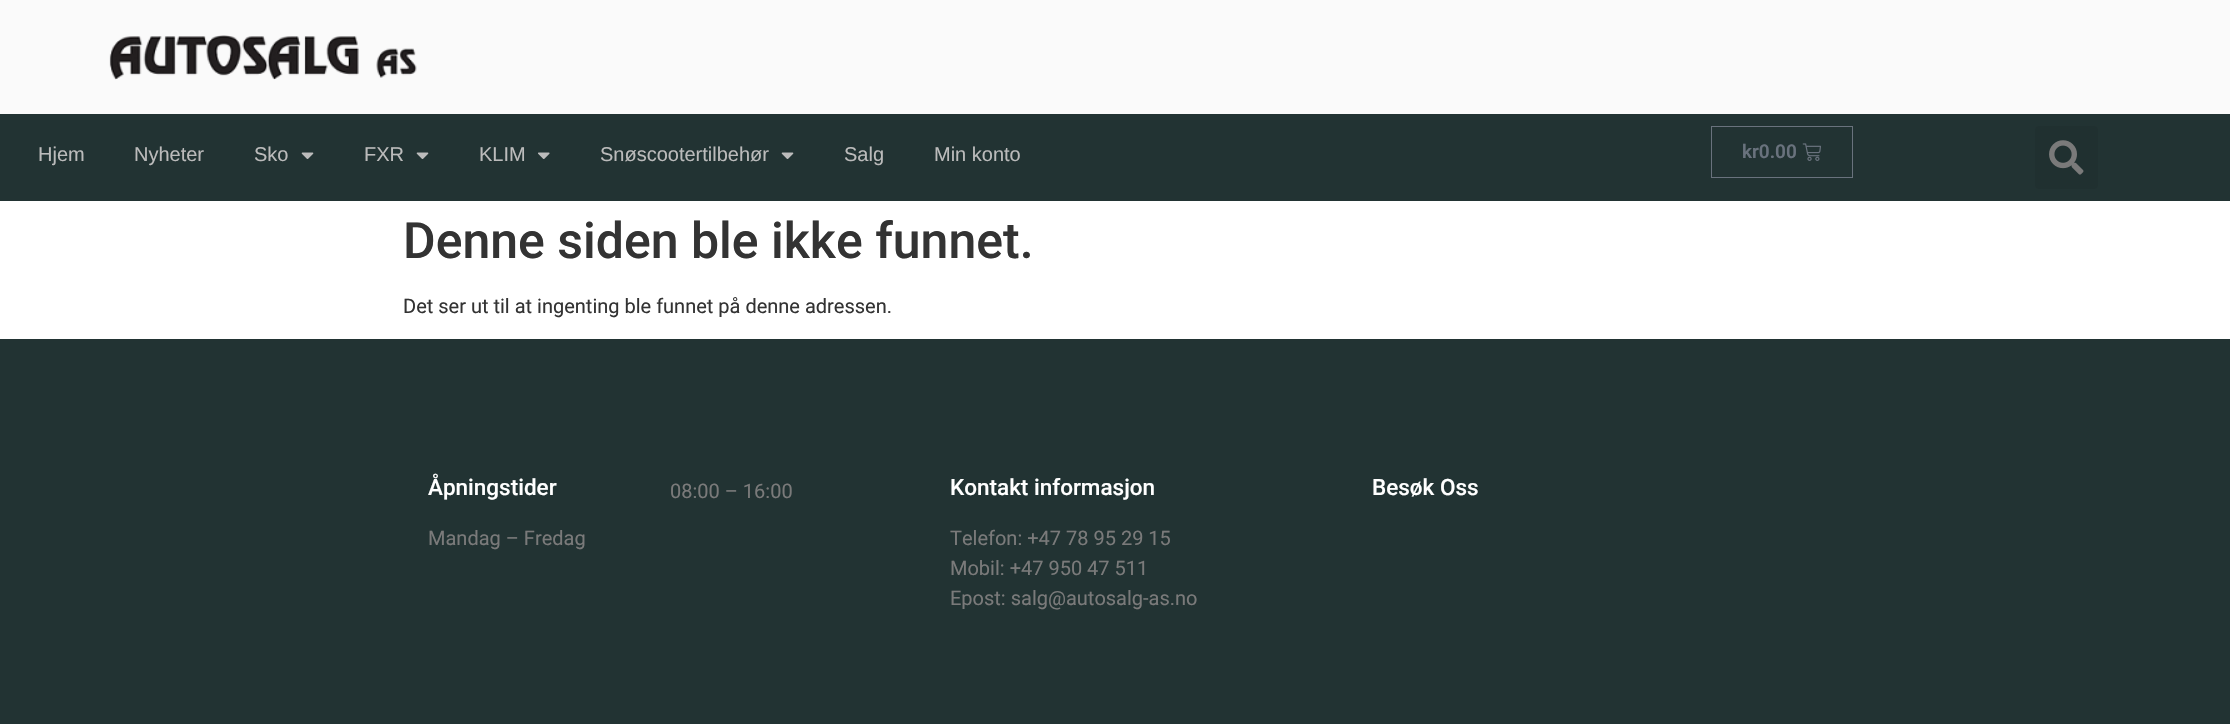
static SkFont makeFont(const char* family, int weight, float size, bool italic = false) {
  SkFontStyle style(weight, SkFontStyle::kNormal_Width,
    italic ? SkFontStyle::kItalic_Slant : SkFontStyle::kUpright_Slant);
  SkFont result(fontMgr->matchFamilyStyle(family, style), size);
  result.setSubpixel(true);
  return result;
}

static void text(SkCanvas* c, const char* s, float x, float y, const SkFont& font, SkColor color) {
  SkPaint ink(SkColor4f::FromColor(color));
  ink.setAntiAlias(true);
  c->drawString(s, x, y, font, ink);
}

static void box(SkCanvas* c, float l, float t, float r, float b, SkColor color) {
  SkPaint ink(SkColor4f::FromColor(color));
  ink.setAntiAlias(true);
  c->drawRect(SkRect::MakeLTRB(l, t, r, b), ink);
}

static void roundBox(SkCanvas* c, float l, float t, float r, float b, float radius, SkColor color) {
  SkPaint ink(SkColor4f::FromColor(color));
  ink.setAntiAlias(true);
  c->drawRoundRect(SkRect::MakeLTRB(l, t, r, b), radius, radius, ink);
}

static void picture(SkCanvas* c, const char* path, float l, float t, float r, float b) {
  auto image = SkImages::DeferredFromEncodedData(SkData::MakeFromFileName(path));
  c->drawImageRect(image, SkRect::MakeLTRB(l, t, r, b), SkSamplingOptions());
}

void draw(SkCanvas* c) {
  SkPaint paint;
  paint.setAntiAlias(true);
  c->clear(0xffffffff);
  box(c, 0, 0, 2230, 114, 0xfffafafa);
  picture(c, "img_01.png", 109, 35, 417, 80);
  box(c, 0, 114, 2230, 201, 0xff223333);
  SkFont face1 = makeFont("Liberation Sans", 400, 20);
  text(c, "Hjem", 38, 161, face1, 0xffbbbbbb);
  text(c, "Nyheter", 134, 161, face1, 0xffbbbbbb);
  text(c, "Sko", 254, 161, face1, 0xffbbbbbb);
  picture(c, "img_02.png", 301, 152, 314, 159);
  text(c, "FXR", 364, 161, face1, 0xffbbbbbb);
  picture(c, "img_02.png", 416, 152, 429, 159);
  text(c, "KLIM", 479, 161, face1, 0xffbbbbbb);
  picture(c, "img_03.png", 538, 152, 550, 159);
  text(c, "Snøscootertilbehør", 600, 161, face1, 0xffbbbbbb);
  picture(c, "img_02.png", 781, 152, 794, 159);
  text(c, "Salg", 844, 161, face1, 0xffbbbbbb);
  text(c, "Min konto", 934, 161, face1, 0xffbbbbbb);
  paint.setStyle(SkPaint::kStroke_Style);
  paint.setStrokeWidth(1);
  paint.setColor(0xff69727d);
  c->drawRect(SkRect::MakeLTRB(1711.5f, 126.5f, 1852.5f, 177.5f), paint);
  SkFont face2 = makeFont("Roboto", 600, 19);
  text(c, "kr0.00", 1742, 158, face2, 0xff69727d);
  picture(c, "img_04.png", 1802, 143, 1821, 161);
  roundBox(c, 2035, 126, 2098, 189, 4, 0xff203030);
  picture(c, "img_05.png", 2049, 140, 2084, 175);
  SkFont face3 = makeFont("Roboto", 500, 50);
  text(c, "Denne siden ble ikke funnet.", 403, 258, face3, 0xff333333);
  SkFont face4 = makeFont("Roboto", 400, 20);
  text(c, "Det ser ut til at ingenting ble funnet på denne adressen.", 403, 313, face4, 0xff333333);
  box(c, 0, 339, 2230, 724, 0xff223333);
  SkFont face5 = makeFont("Roboto", 500, 22.5f);
  text(c, "Åpningstider", 428, 495, face5, 0xffffffff);
  text(c, "Mandag – Fredag", 428, 545, face4, 0xff7a7a7a);
  text(c, "08:00 – 16:00", 670, 498, face4, 0xff7a7a7a);
  text(c, "Kontakt informasjon", 950, 495, face5, 0xffffffff);
  text(c, "Telefon: +47 78 95 29 15", 950, 545, face4, 0xff7a7a7a);
  text(c, "Mobil: +47 950 47 511", 950, 575, face4, 0xff7a7a7a);
  text(c, "Epost: salg@autosalg-as.no", 950, 605, face4, 0xff7a7a7a);
  text(c, "Besøk Oss", 1372, 495, face5, 0xffffffff);
}
